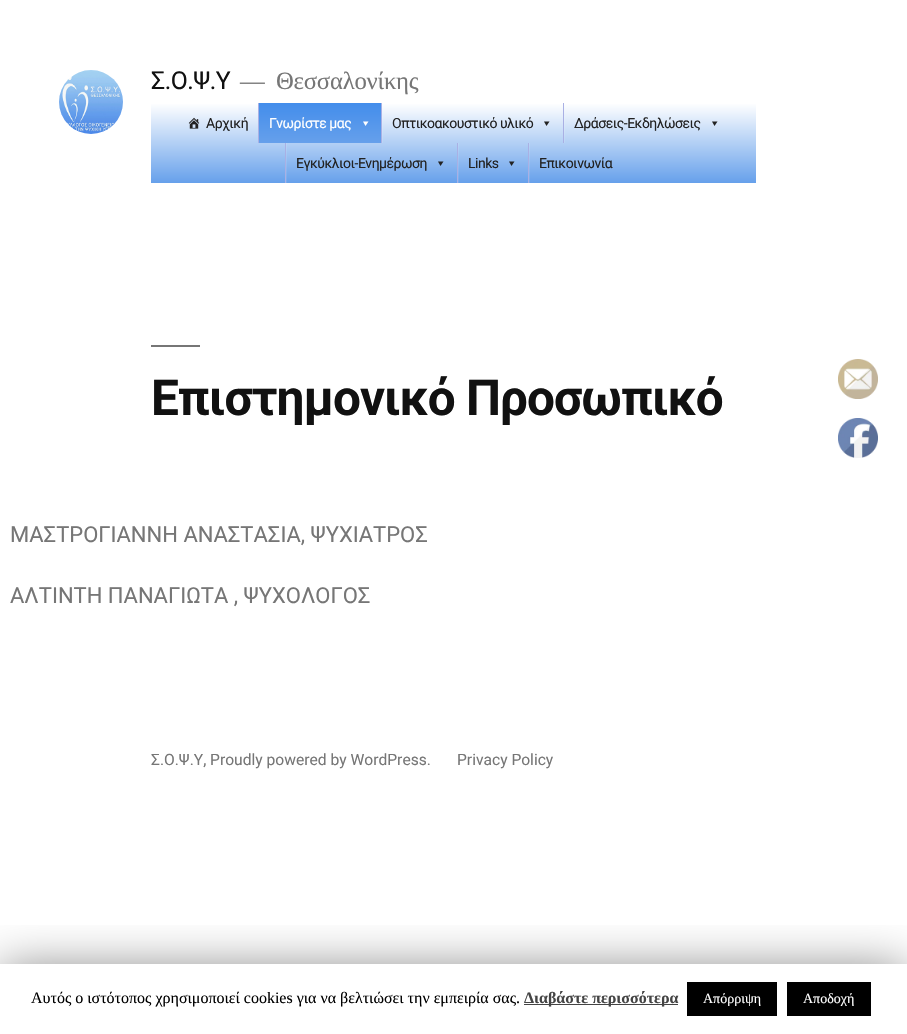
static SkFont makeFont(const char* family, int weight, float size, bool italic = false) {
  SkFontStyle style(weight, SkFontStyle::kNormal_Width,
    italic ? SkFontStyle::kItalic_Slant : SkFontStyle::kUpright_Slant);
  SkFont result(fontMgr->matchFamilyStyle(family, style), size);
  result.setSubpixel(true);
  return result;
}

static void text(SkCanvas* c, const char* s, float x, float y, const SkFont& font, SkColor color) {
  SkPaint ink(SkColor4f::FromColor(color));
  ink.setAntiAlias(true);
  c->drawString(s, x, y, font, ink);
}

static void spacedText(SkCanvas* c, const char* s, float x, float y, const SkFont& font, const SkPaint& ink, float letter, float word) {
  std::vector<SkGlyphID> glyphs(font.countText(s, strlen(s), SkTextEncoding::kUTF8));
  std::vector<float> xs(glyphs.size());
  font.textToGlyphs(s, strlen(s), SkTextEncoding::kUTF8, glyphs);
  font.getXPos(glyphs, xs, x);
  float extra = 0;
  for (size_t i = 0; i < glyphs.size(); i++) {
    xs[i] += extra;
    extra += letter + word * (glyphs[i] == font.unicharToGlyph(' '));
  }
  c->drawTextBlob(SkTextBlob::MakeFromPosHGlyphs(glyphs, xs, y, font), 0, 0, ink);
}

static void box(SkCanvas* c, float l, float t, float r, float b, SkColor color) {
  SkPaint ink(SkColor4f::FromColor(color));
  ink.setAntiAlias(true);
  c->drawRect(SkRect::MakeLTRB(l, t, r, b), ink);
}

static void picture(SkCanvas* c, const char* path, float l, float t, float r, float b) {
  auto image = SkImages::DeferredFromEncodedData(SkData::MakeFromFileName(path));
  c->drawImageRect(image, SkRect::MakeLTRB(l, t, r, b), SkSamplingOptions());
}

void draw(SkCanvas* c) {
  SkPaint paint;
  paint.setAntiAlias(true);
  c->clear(0xffffffff);
  picture(c, "img_01.png", 59, 70, 123, 134);
  SkFont face1 = makeFont("Roboto", 400, 24.75f);
  paint.setColor(0xff111111);
  spacedText(c, "Σ.Ο.Ψ.Υ", 151, 89, face1, paint, -0.5f, 0);
  SkFont face2 = makeFont("Liberation Serif", 400, 24.75f);
  paint.setColor(0xff767676);
  spacedText(c, "—", 240, 89, face2, paint, -0.25f, 0);
  spacedText(c, "Θεσσαλονίκης", 276, 89, face2, paint, -0.25f, 0);
  {
    const SkColor colors[] = {0xffffffff, 0xff66a0eb};
    const float stops[] = {0, 1};
    const SkPoint ends[] = {{454, 103}, {454, 183}};
    paint.setShader(SkGradientShader::MakeLinear(ends, colors, stops, 2, SkTileMode::kClamp));
    paint.setAlpha(255);
  }
  c->drawRect(SkRect::MakeLTRB(151, 104, 756, 183), paint);
  {
    const SkColor colors[] = {0xffffffff, 0xff75aaed};
    const float stops[] = {0, 1};
    const SkPoint ends[] = {{454, 103}, {454, 183}};
    paint.setShader(SkGradientShader::MakeLinear(ends, colors, stops, 2, SkTileMode::kClamp));
    paint.setAlpha(255);
  }
  c->drawRect(SkRect::MakeLTRB(529, 143, 530, 183), paint);
  c->drawRect(SkRect::MakeLTRB(458, 143, 459, 183), paint);
  c->drawRect(SkRect::MakeLTRB(286, 143, 287, 183), paint);
  c->drawRect(SkRect::MakeLTRB(564, 116, 565, 143), paint);
  c->drawRect(SkRect::MakeLTRB(382, 116, 383, 143), paint);
  picture(c, "img_02.png", 188, 117, 200, 129);
  SkFont face3 = makeFont("Roboto", 400, 14);
  paint.setShader(nullptr);
  paint.setColor(0xff222222);
  spacedText(c, "Αρχική", 206, 128, face3, paint, -0.5f, 0);
  box(c, 258, 103, 259, 143, 0xffa9b0e4);
  {
    const SkColor colors[] = {0xff438deb, 0xff66a0eb};
    const float stops[] = {0, 1};
    const SkPoint ends[] = {{320, 103}, {320, 143}};
    paint.setShader(SkGradientShader::MakeLinear(ends, colors, stops, 2, SkTileMode::kClamp));
    paint.setAlpha(255);
  }
  c->drawRect(SkRect::MakeLTRB(259, 103, 381, 143), paint);
  paint.setShader(nullptr);
  paint.setColor(0xffffffff);
  spacedText(c, "Γνωρίστε μας", 269, 128, face3, paint, -0.5f, 0);
  c->drawPath(SkPathBuilder().moveTo(368.5f, 121.5f).lineTo(365.5f, 126).lineTo(363, 121.5f).close().detach(), paint);
  box(c, 381, 103, 382, 143, 0xffa9b0e4);
  paint.setColor(0xff222222);
  spacedText(c, "Οπτικοακουστικό υλικό", 392, 128, face3, paint, -0.5f, 0);
  c->drawPath(SkPathBuilder().moveTo(549.5f, 121.5f).lineTo(546.5f, 126).lineTo(544, 121.5f).close().detach(), paint);
  box(c, 563, 103, 564, 143, 0xffa9b0e4);
  spacedText(c, "Δράσεις-Εκδηλώσεις", 574, 128, face3, paint, -0.5f, 0);
  c->drawPath(SkPathBuilder().moveTo(717.5f, 121.5f).lineTo(714.5f, 126).lineTo(712, 121.5f).close().detach(), paint);
  box(c, 285, 143, 286, 183, 0xffa9b0e4);
  spacedText(c, "Εγκύκλιοι-Ενημέρωση", 296, 168, face3, paint, -0.5f, 0);
  c->drawPath(SkPathBuilder().moveTo(443.5f, 161.5f).lineTo(440.5f, 166).lineTo(438, 161.5f).close().detach(), paint);
  box(c, 457, 143, 458, 183, 0xffa9b0e4);
  spacedText(c, "Links", 468, 168, face3, paint, -0.5f, 0);
  c->drawPath(SkPathBuilder().moveTo(514.5f, 161.5f).lineTo(511.5f, 166).lineTo(509, 161.5f).close().detach(), paint);
  box(c, 528, 143, 529, 183, 0xffa9b0e4);
  spacedText(c, "Επικοινωνία", 539, 168, face3, paint, -0.5f, 0);
  box(c, 151, 345, 200, 347, 0xff767676);
  SkFont face4 = makeFont("Roboto", 700, 49.5f);
  paint.setColor(0xff111111);
  spacedText(c, "Επιστημονικό Προσωπικό", 151, 415, face4, paint, -1, 0);
  SkFont face5 = makeFont("Roboto", 400, 22);
  text(c, "ΜΑΣΤΡΟΓΙΑΝΝΗ ΑΝΑΣΤΑΣΙΑ, ΨΥΧΙΑΤΡΟΣ", 10, 542, face5, 0xff767676);
  text(c, "ΑΛΤΙΝΤΗ ΠΑΝΑΓΙΩΤΑ , ΨΥΧΟΛΟΓΟΣ", 10, 603, face5, 0xff767676);
  SkFont face6 = makeFont("Roboto", 400, 15.6f);
  text(c, "Σ.Ο.Ψ.Υ, Proudly powered by WordPress.", 151, 765, face6, 0xff767676);
  text(c, "Privacy Policy", 457, 765, face6, 0xff767676);
  picture(c, "img_03.png", 838, 359, 878, 399);
  picture(c, "img_04.png", 838, 418, 878, 458);
  c->save();
  c->clipRect(SkRect::MakeLTRB(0, 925, 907, 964));
  paint.setColor(0x80000000);
  paint.setMaskFilter(SkMaskFilter::MakeBlur(kNormal_SkBlurStyle, 25));
  c->drawRect(SkRect::MakeLTRB(0, 969, 907, 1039), paint);
  paint.setMaskFilter(nullptr);
  c->restore();
  SkFont face7 = makeFont("Liberation Serif", 400, 16);
  text(c, "Αυτός ο ιστότοπος χρησιμοποιεί cookies για να βελτιώσει την εμπειρία σας.", 31, 1003, face7, 0xff000000);
  box(c, 524, 1004, 678, 1005, 0xff444444);
  SkFont face8 = makeFont("Liberation Serif", 700, 16);
  text(c, "Διαβάστε περισσότερα", 524, 1003, face8, 0xff444444);
  box(c, 687, 982, 777, 1016, 0xff000000);
  SkFont face9 = makeFont("Liberation Serif", 400, 14);
  text(c, "Απόρριψη", 703, 1003, face9, 0xffffffff);
  box(c, 787, 982, 871, 1016, 0xff000000);
  text(c, "Αποδοχή", 803, 1003, face9, 0xffffffff);
}
